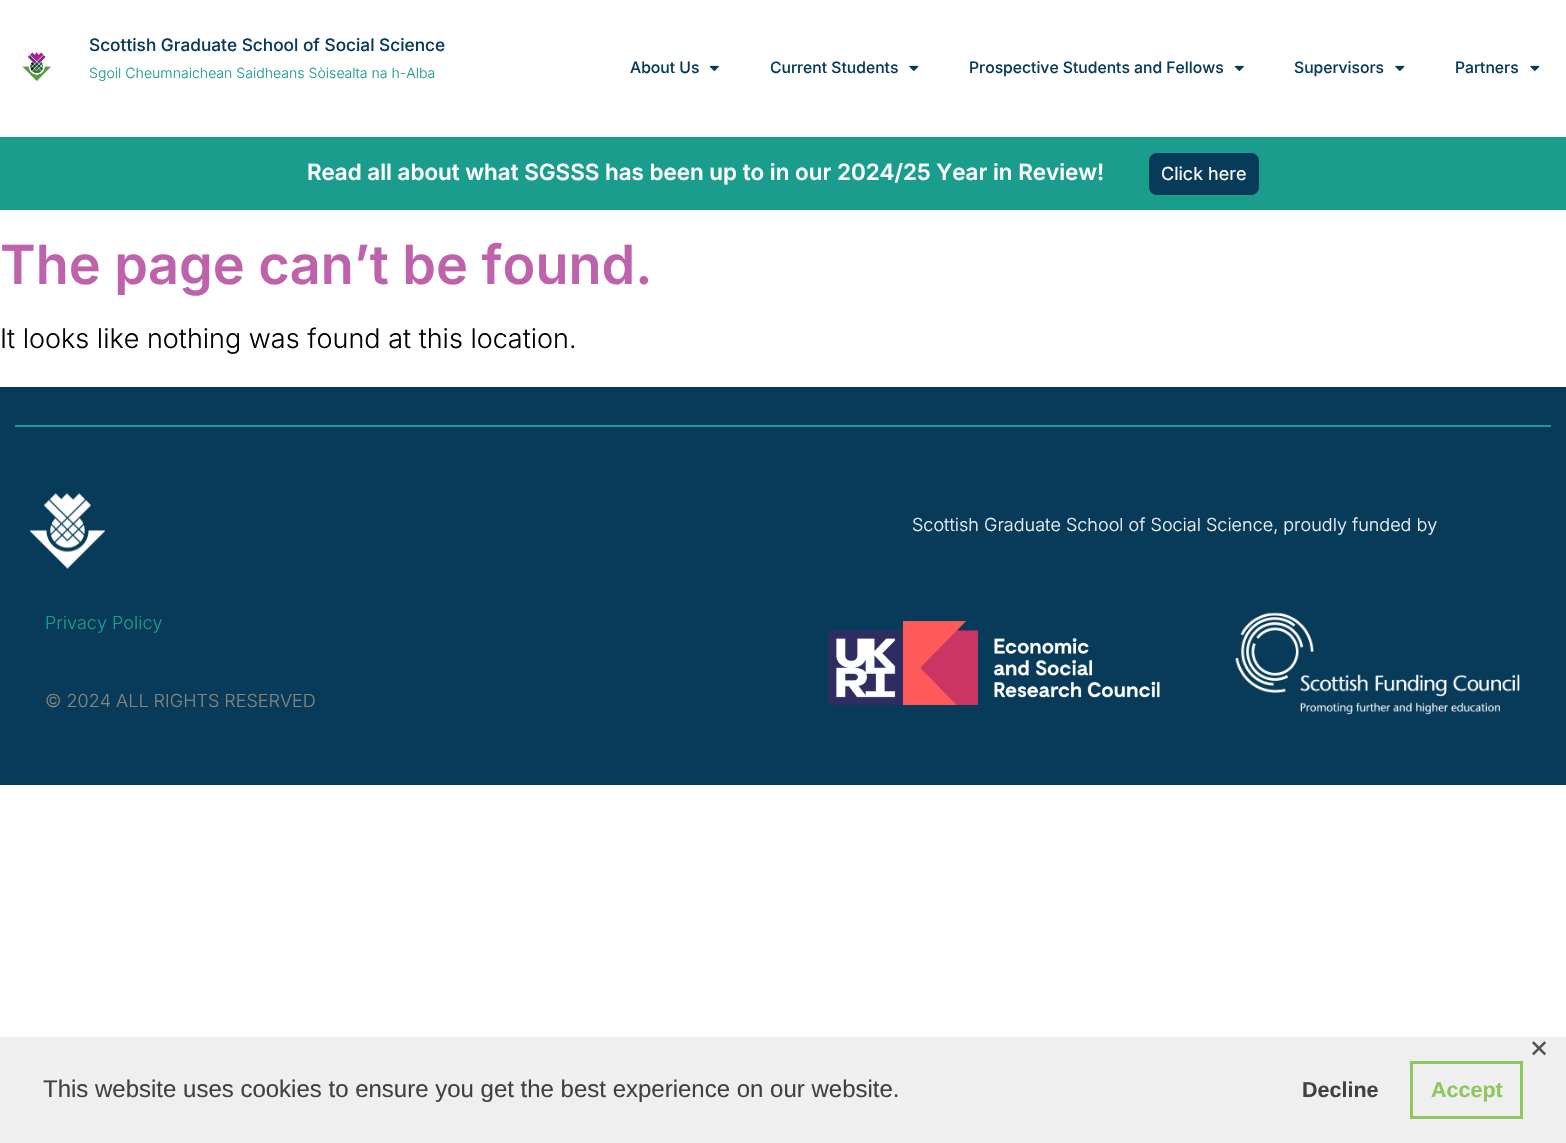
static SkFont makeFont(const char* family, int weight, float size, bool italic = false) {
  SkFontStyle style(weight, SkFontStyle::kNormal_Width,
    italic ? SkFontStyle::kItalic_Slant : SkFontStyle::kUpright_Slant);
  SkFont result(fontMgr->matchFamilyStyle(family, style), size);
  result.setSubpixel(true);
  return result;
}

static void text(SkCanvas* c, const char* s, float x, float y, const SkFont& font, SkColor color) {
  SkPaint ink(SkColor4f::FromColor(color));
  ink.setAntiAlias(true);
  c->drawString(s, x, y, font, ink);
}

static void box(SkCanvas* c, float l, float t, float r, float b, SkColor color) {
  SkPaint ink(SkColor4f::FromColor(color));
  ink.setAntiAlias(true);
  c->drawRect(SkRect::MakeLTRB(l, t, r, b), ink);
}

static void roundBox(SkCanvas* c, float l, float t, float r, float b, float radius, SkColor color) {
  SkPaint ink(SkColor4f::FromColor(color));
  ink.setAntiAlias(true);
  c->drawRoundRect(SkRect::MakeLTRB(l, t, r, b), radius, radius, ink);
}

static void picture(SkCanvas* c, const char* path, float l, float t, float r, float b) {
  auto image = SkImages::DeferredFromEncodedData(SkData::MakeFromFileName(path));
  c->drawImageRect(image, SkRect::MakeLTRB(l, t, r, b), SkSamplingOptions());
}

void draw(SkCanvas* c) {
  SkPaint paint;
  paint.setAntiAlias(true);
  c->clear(0xffffffff);
  picture(c, "img_01.png", 22, 52, 51, 81);
  SkFont face1 = makeFont("Inter", 500, 17.25f);
  text(c, "Scottish Graduate School of Social Science", 89, 51, face1, 0xff073b59);
  SkFont face2 = makeFont("Inter", 300, 14.1f);
  text(c, "Sgoil Cheumnaichean Saidheans Sòisealta na h-Alba", 89, 78, face2, 0xff1b9d8e);
  SkFont face3 = makeFont("Inter", 500, 15.7f);
  text(c, "About Us", 630, 73, face3, 0xff073b59);
  picture(c, "img_02.png", 709, 65, 719, 71);
  text(c, "Current Students", 770, 73, face3, 0xff073b59);
  picture(c, "img_03.png", 909, 65, 919, 71);
  text(c, "Prospective Students and Fellows", 969, 73, face3, 0xff073b59);
  picture(c, "img_02.png", 1234, 65, 1244, 71);
  text(c, "Supervisors", 1294, 73, face3, 0xff073b59);
  picture(c, "img_03.png", 1395, 65, 1405, 71);
  text(c, "Partners", 1455, 73, face3, 0xff073b59);
  picture(c, "img_03.png", 1530, 65, 1540, 71);
  box(c, 0, 137, 1566, 210, 0xff1b9d8e);
  SkFont face4 = makeFont("Inter", 600, 22.4f);
  text(c, "Read all about what SGSSS has been up to in our 2024/25 Year in Review!", 307, 180, face4, 0xffffffff);
  roundBox(c, 1149, 153, 1259, 195, 8, 0xff073b59);
  SkFont face5 = makeFont("Inter", 400, 18);
  text(c, "Click here", 1161, 180, face5, 0xffffffff);
  SkFont face6 = makeFont("Inter", 600, 54);
  text(c, "The page can’t be found.", 0, 284, face6, 0xffbd62ab);
  SkFont face7 = makeFont("Inter", 300, 27);
  text(c, "It looks like nothing was found at this location.", 0, 348, face7, 0xff020101);
  box(c, 0, 387, 1566, 785, 0xff073b59);
  box(c, 15, 425, 1551, 427, 0xff1b9d8e);
  SkFont face8 = makeFont("Inter", 300, 18);
  text(c, "Scottish Graduate School of Social Science, proudly funded by", 912, 531, face8, 0xffedf2f6);
  picture(c, "img_04.png", 828, 621, 1160, 705);
  picture(c, "img_05.png", 1235, 612, 1520, 715);
  picture(c, "img_06.png", 30, 493, 105, 569);
  text(c, "Privacy Policy", 45, 629, face8, 0xff1b9d8e);
  text(c, "© 2024 ALL RIGHTS RESERVED", 45, 707, face8, 0xff85867f);
  box(c, 0, 1037, 1566, 1143, 0xffefefef);
  SkFont face9 = makeFont("DejaVu Sans", 400, 24);
  text(c, "✕", 1529, 1057, face9, 0xff525252);
  SkFont face10 = makeFont("Liberation Sans", 400, 24);
  text(c, "This website uses cookies to ensure you get the best experience on our website.", 43, 1097, face10, 0xff404040);
  SkFont face11 = makeFont("Liberation Sans", 700, 21.5f);
  text(c, "Decline", 1302, 1097, face11, 0xff404040);
  paint.setStyle(SkPaint::kStroke_Style);
  paint.setStrokeWidth(3);
  paint.setColor(0xff8ec760);
  c->drawRect(SkRect::MakeLTRB(1411.5f, 1062.5f, 1521.5f, 1117.5f), paint);
  text(c, "Accept", 1431, 1097, face11, 0xff8ec760);
}
